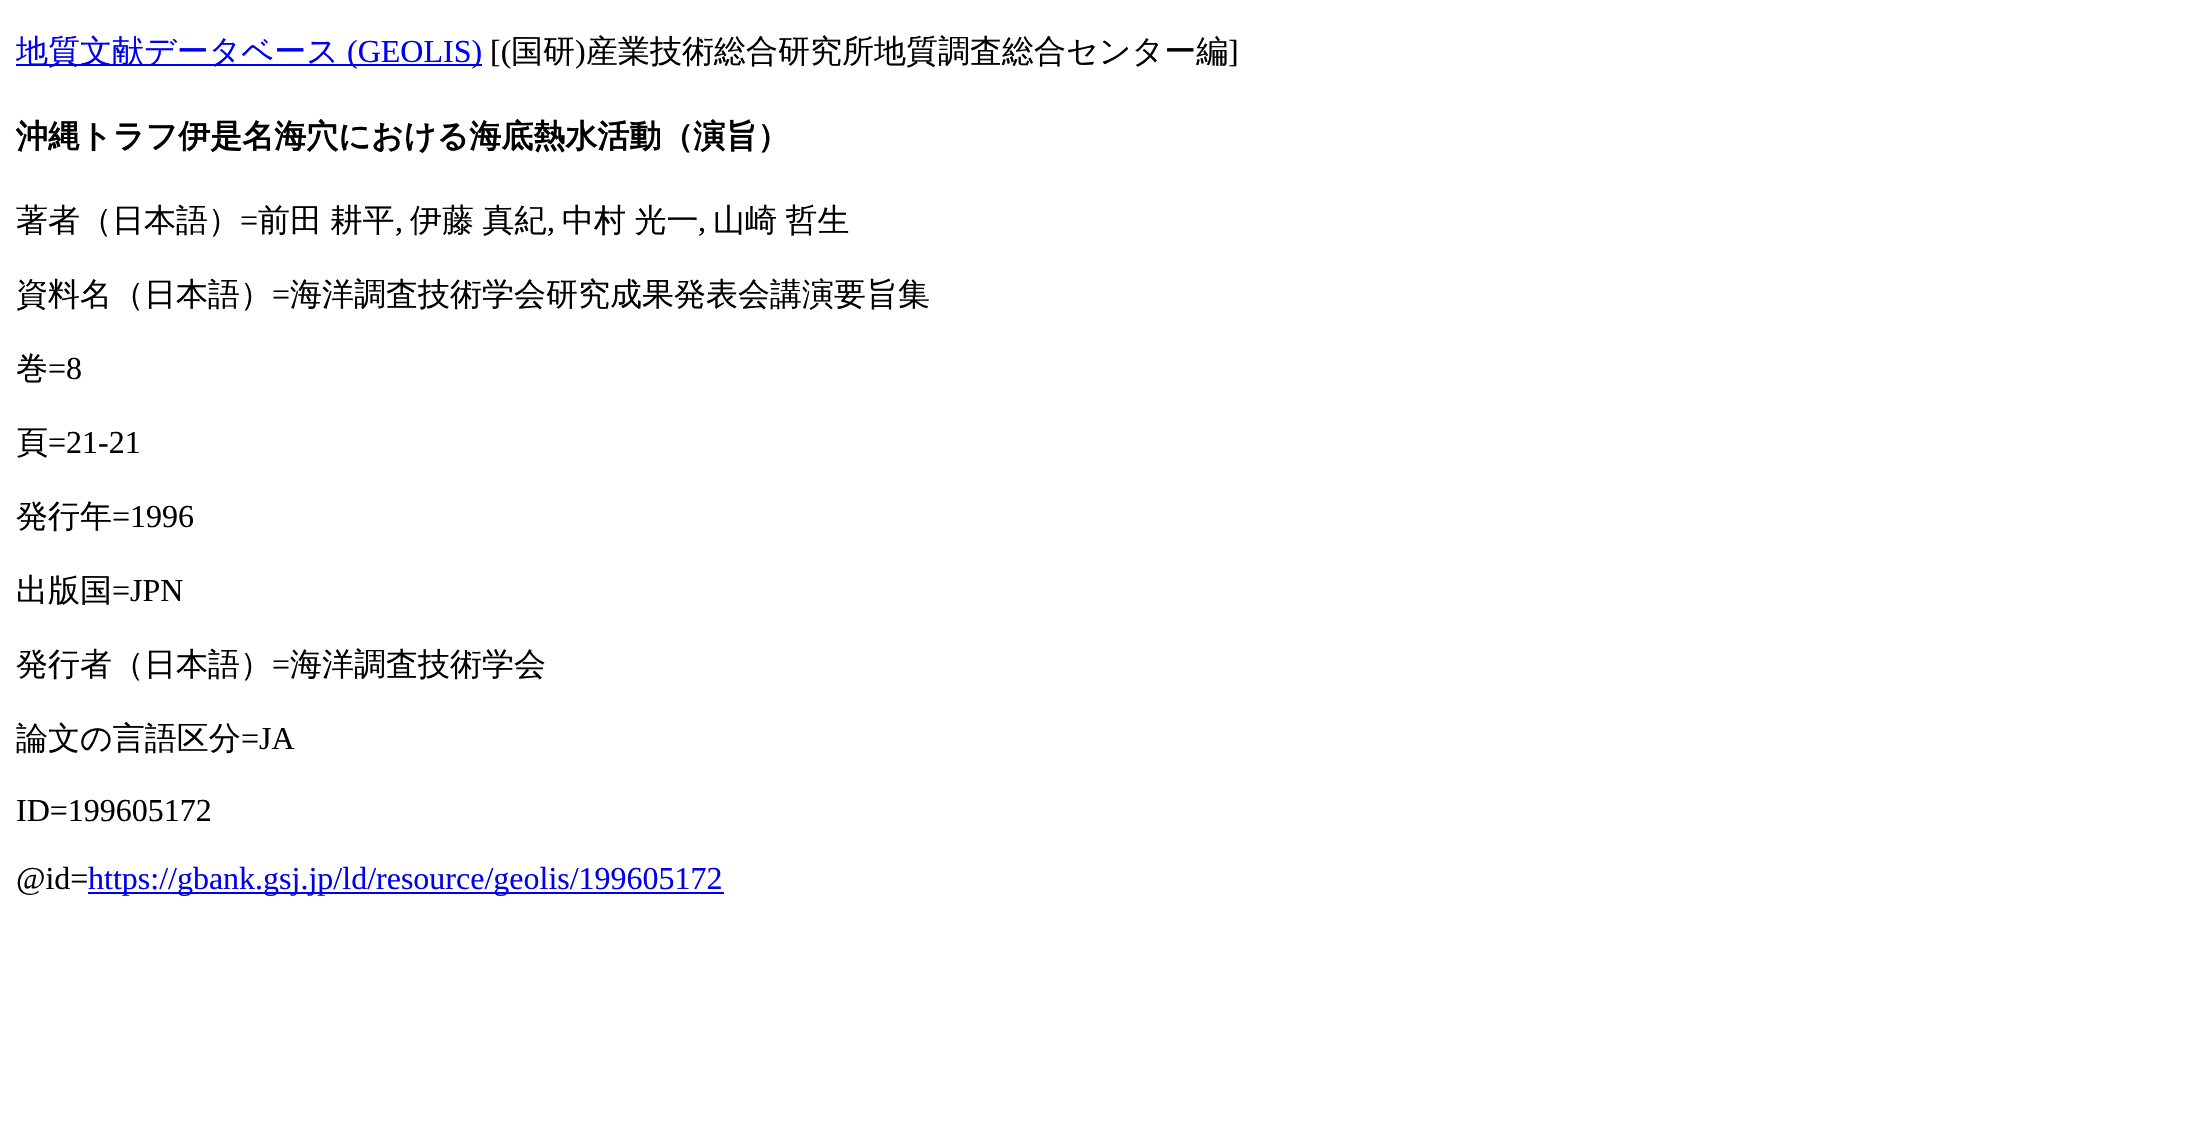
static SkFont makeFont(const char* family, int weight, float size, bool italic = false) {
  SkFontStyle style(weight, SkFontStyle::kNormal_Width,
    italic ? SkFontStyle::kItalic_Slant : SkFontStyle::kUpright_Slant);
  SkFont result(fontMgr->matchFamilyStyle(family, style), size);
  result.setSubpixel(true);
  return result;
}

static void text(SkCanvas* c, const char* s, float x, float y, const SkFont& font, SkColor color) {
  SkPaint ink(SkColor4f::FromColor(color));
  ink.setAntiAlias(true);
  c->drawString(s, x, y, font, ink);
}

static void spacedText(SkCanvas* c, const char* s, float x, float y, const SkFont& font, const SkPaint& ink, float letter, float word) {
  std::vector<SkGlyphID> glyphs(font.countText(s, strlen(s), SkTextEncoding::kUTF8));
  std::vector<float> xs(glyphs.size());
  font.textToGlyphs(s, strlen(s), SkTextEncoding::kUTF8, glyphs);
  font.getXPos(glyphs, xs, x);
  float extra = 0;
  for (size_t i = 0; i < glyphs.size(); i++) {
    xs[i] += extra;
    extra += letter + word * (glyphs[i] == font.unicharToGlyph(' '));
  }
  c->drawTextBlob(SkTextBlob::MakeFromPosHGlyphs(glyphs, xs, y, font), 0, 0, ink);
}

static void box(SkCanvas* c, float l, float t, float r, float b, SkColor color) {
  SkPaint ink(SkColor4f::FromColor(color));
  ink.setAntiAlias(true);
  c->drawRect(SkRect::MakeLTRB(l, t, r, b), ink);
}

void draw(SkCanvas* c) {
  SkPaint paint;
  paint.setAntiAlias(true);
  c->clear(0xffffffff);
  box(c, 16, 64, 482, 66, 0xff0000ee);
  SkFont face1 = makeFont("WenQuanYi Zen Hei", 500, 32);
  text(c, "地質文献データベース", 16, 62, face1, 0xff0000ee);
  SkFont face2 = makeFont("Liberation Serif", 400, 32);
  text(c, "(GEOLIS)", 347, 62, face2, 0xff0000ee);
  text(c, "[(", 490, 62, face2, 0xff000000);
  text(c, "国研", 511, 62, face1, 0xff000000);
  text(c, ")", 575, 62, face2, 0xff000000);
  text(c, "産業技術総合研究所地質調査総合センター編", 586, 62, face1, 0xff000000);
  text(c, "]", 1228, 62, face2, 0xff000000);
  SkFont face3 = makeFont("WenQuanYi Zen Hei", 700, 32);
  text(c, "沖縄トラフ伊是名海穴における海底熱水活動（演旨）", 16, 147, face3, 0xff000000);
  text(c, "著者（日本語）", 16, 231, face1, 0xff000000);
  text(c, "=", 240, 231, face2, 0xff000000);
  paint.setColor(0xff000000);
  spacedText(c, "前田 耕平", 258, 231, face1, paint, 0, -1);
  spacedText(c, "伊藤 真紀", 410, 231, face1, paint, 0, -1);
  spacedText(c, "中村 光一", 562, 231, face1, paint, 0, -1);
  spacedText(c, "山崎 哲生", 713, 231, face1, paint, 0, -1);
  text(c, ",", 395, 231, face2, 0xff000000);
  text(c, ",", 547, 231, face2, 0xff000000);
  text(c, ",", 698, 231, face2, 0xff000000);
  text(c, "資料名（日本語）", 16, 305, face1, 0xff000000);
  text(c, "=", 272, 305, face2, 0xff000000);
  text(c, "海洋調査技術学会研究成果発表会講演要旨集", 290, 305, face1, 0xff000000);
  text(c, "巻", 16, 379, face1, 0xff000000);
  text(c, "=8", 48, 379, face2, 0xff000000);
  text(c, "頁", 16, 453, face1, 0xff000000);
  text(c, "=21-21", 48, 453, face2, 0xff000000);
  text(c, "発行年", 16, 527, face1, 0xff000000);
  text(c, "=1996", 112, 527, face2, 0xff000000);
  text(c, "出版国", 16, 601, face1, 0xff000000);
  text(c, "=JPN", 112, 601, face2, 0xff000000);
  text(c, "発行者（日本語）", 16, 675, face1, 0xff000000);
  text(c, "=", 272, 675, face2, 0xff000000);
  text(c, "海洋調査技術学会", 290, 675, face1, 0xff000000);
  text(c, "論文の言語区分", 16, 749, face1, 0xff000000);
  text(c, "=JA", 241, 749, face2, 0xff000000);
  text(c, "ID=199605172", 16, 821, face2, 0xff000000);
  text(c, "@id=", 16, 889, face2, 0xff000000);
  box(c, 88, 892, 724, 894, 0xff0000ee);
  text(c, "https://gbank.gsj.jp/ld/resource/geolis/199605172", 88, 889, face2, 0xff0000ee);
}
